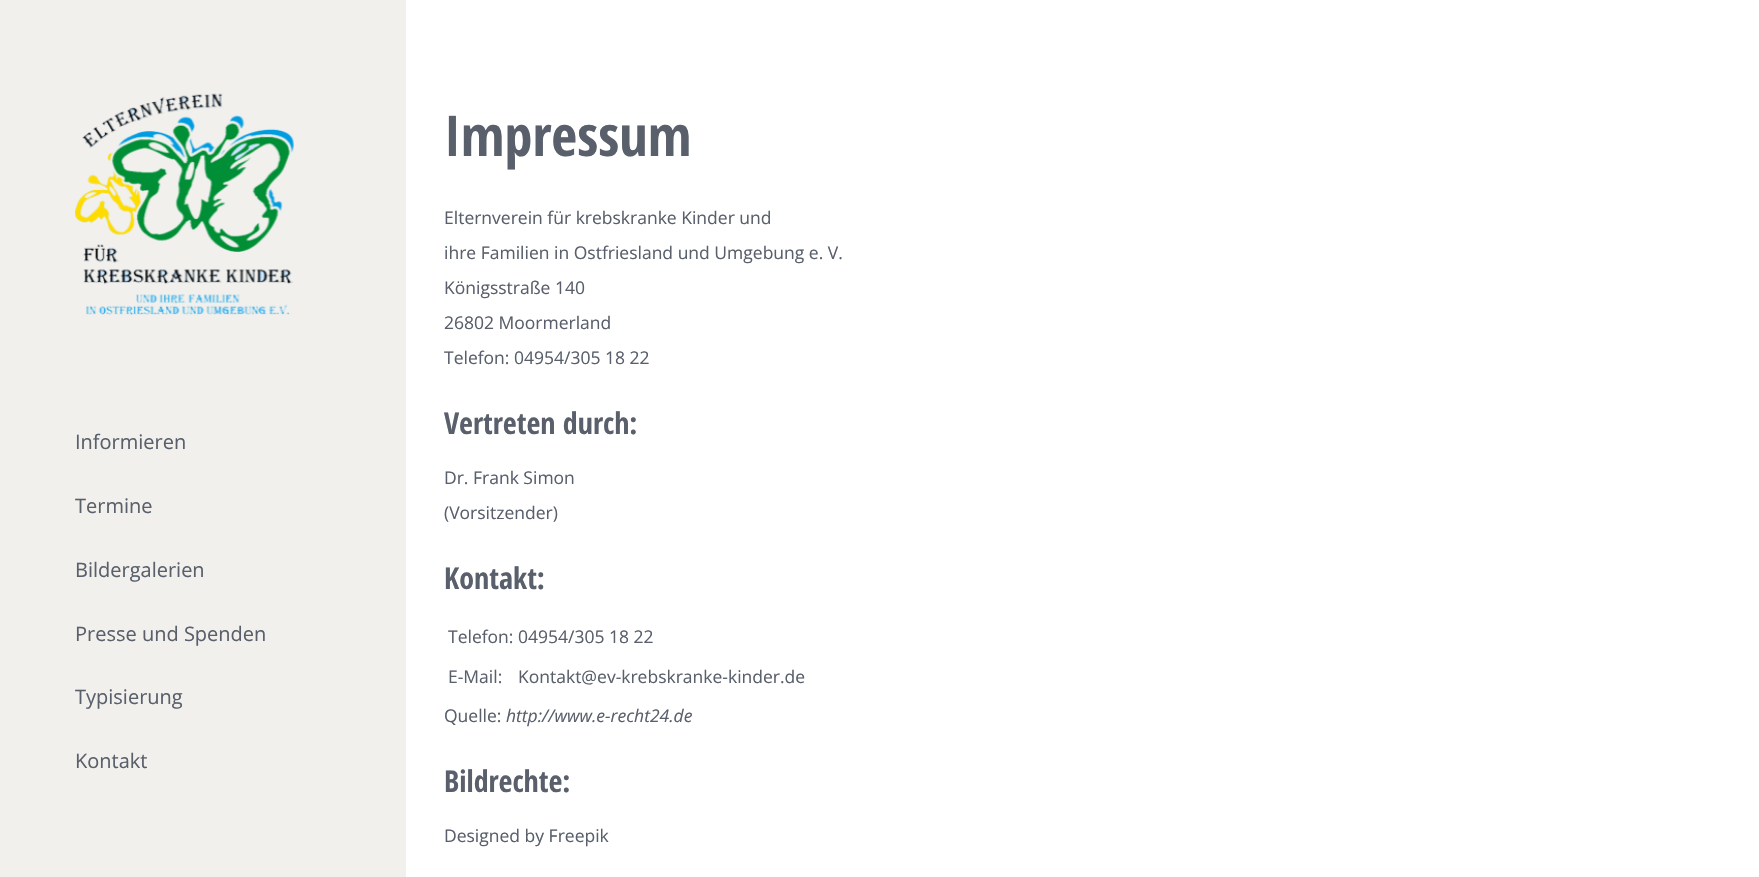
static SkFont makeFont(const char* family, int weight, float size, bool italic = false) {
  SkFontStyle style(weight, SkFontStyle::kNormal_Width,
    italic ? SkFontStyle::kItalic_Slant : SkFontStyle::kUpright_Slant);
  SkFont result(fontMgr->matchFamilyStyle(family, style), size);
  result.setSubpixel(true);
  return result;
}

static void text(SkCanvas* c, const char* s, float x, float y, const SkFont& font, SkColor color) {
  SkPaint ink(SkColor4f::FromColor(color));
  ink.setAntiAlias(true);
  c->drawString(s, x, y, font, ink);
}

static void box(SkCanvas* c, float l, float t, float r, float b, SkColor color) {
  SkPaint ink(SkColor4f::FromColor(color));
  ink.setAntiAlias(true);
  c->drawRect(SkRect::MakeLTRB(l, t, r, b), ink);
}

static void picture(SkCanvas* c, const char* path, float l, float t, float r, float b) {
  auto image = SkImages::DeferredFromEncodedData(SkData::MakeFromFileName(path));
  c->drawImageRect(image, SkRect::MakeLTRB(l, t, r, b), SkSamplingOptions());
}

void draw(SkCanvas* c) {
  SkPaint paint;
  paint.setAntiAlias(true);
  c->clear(0xffffffff);
  box(c, 0, 0, 406, 877, 0xfff1f0ec);
  picture(c, "img_01.png", 75, 93, 294, 315);
  SkFont face1 = makeFont("Open Sans", 400, 20);
  text(c, "Informieren", 75, 449, face1, 0xff595f6b);
  text(c, "Termine", 75, 513, face1, 0xff595f6b);
  text(c, "Bildergalerien", 75, 577, face1, 0xff595f6b);
  text(c, "Presse und Spenden", 75, 641, face1, 0xff595f6b);
  text(c, "Typisierung", 75, 704, face1, 0xff595f6b);
  text(c, "Kontakt", 75, 768, face1, 0xff595f6b);
  SkFont face2 = makeFont("Open Sans Condensed", 700, 56.25f);
  text(c, "Impressum", 444, 156, face2, 0xff595f6b);
  SkFont face3 = makeFont("Open Sans", 400, 17.5f);
  text(c, "Elternverein für krebskranke Kinder und", 444, 224, face3, 0xff595f6b);
  text(c, "ihre Familien in Ostfriesland und Umgebung e. V.", 444, 259, face3, 0xff595f6b);
  text(c, "Königsstraße 140", 444, 294, face3, 0xff595f6b);
  text(c, "26802 Moormerland", 444, 329, face3, 0xff595f6b);
  text(c, "Telefon: 04954/305 18 22", 444, 364, face3, 0xff595f6b);
  SkFont face4 = makeFont("Open Sans Condensed", 700, 30);
  text(c, "Vertreten durch:", 444, 434, face4, 0xff595f6b);
  text(c, "Dr. Frank Simon", 444, 484, face3, 0xff595f6b);
  text(c, "(Vorsitzender)", 444, 519, face3, 0xff595f6b);
  text(c, "Kontakt:", 444, 589, face4, 0xff595f6b);
  text(c, "Telefon:", 448, 643, face3, 0xff595f6b);
  text(c, "04954/305 18 22", 518, 643, face3, 0xff595f6b);
  text(c, "E-Mail:", 448, 683, face3, 0xff595f6b);
  text(c, "Kontakt@ev-krebskranke-kinder.de", 518, 683, face3, 0xff595f6b);
  text(c, "Quelle:", 444, 722, face3, 0xff595f6b);
  SkFont face5 = makeFont("Open Sans", 400, 17.5f, true);
  text(c, "http://www.e-recht24.de", 506, 722, face5, 0xff595f6b);
  text(c, "Bildrechte:", 444, 792, face4, 0xff595f6b);
  text(c, "Designed by Freepik", 444, 842, face3, 0xff595f6b);
}
